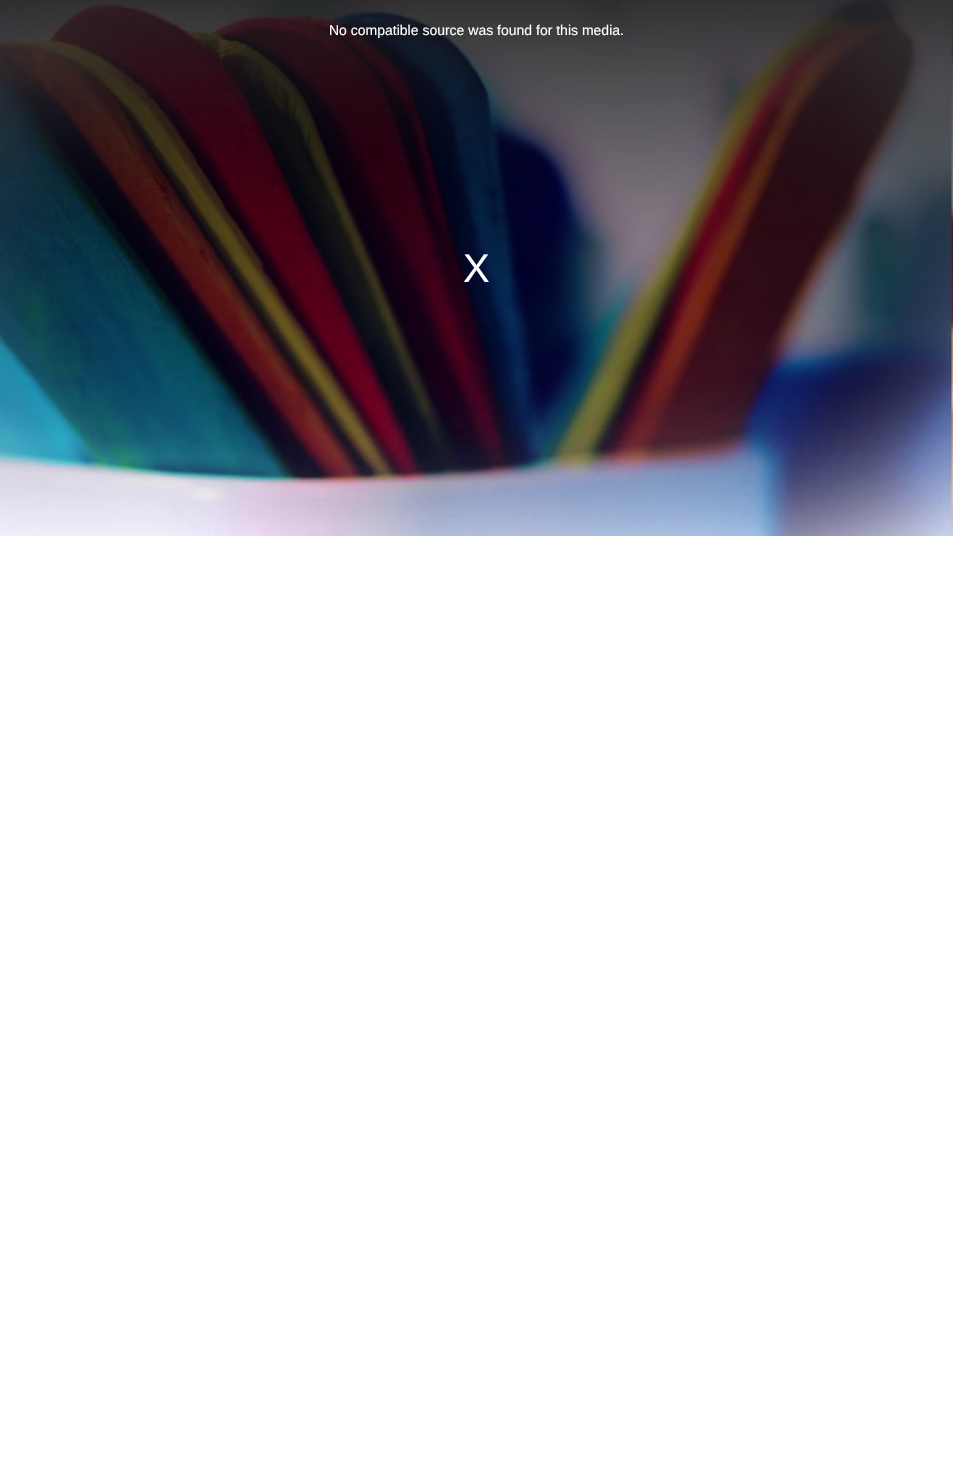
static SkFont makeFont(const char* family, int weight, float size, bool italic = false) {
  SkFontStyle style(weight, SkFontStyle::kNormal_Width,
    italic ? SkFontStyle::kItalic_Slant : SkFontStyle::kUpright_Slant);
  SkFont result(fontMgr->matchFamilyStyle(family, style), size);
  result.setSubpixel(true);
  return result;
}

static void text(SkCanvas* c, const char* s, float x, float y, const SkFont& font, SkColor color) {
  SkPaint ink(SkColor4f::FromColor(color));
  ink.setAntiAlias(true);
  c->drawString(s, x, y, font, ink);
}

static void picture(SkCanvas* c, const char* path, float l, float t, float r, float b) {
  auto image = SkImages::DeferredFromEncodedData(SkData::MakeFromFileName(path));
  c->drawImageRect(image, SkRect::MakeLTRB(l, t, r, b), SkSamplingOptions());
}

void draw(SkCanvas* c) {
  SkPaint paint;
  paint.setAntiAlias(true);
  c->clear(0xffffffff);
  picture(c, "img_01.png", 0, 0, 953, 536);
  SkFont face1 = makeFont("Liberation Sans", 400, 14);
  text(c, "No compatible source was found for this media.", 329, 35, face1, 0xffffffff);
  SkFont face2 = makeFont("Liberation Sans", 400, 40);
  text(c, "X", 463, 282, face2, 0xffffffff);
}
